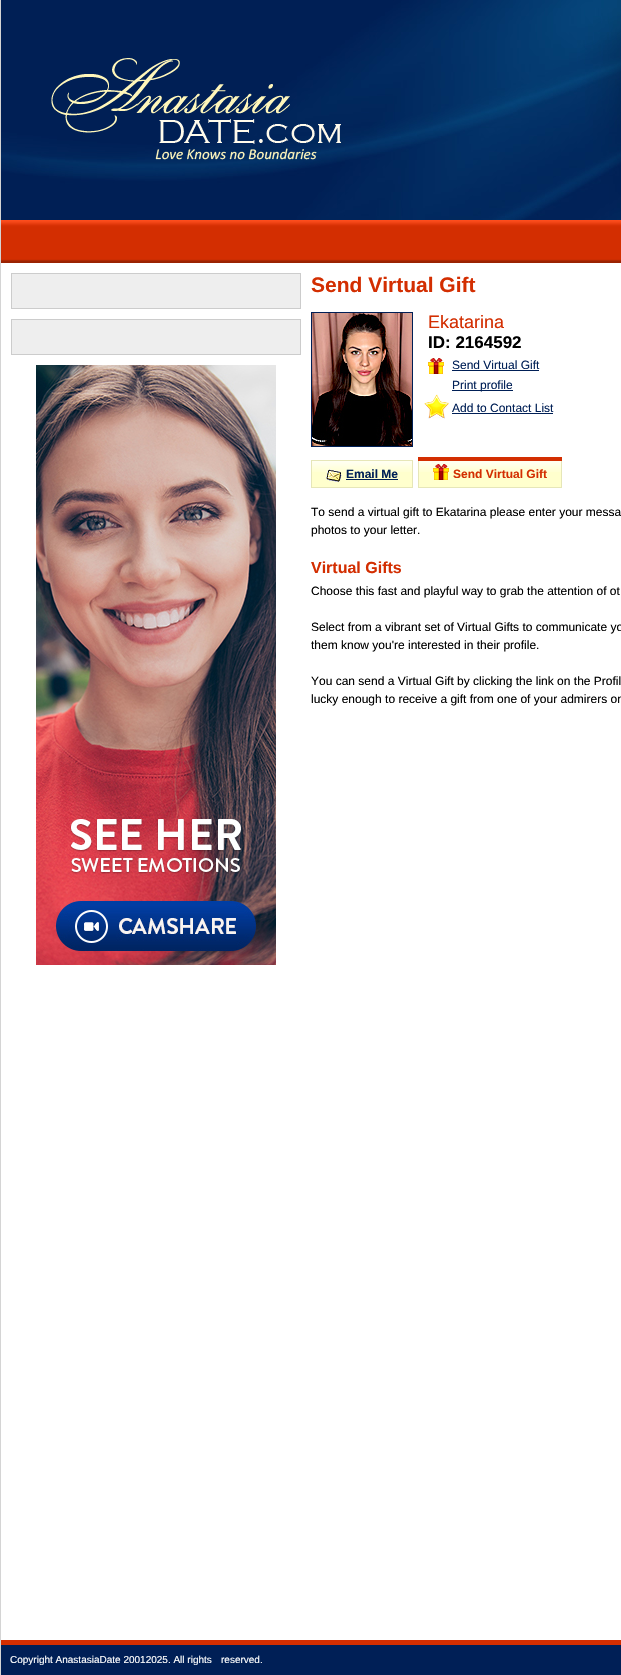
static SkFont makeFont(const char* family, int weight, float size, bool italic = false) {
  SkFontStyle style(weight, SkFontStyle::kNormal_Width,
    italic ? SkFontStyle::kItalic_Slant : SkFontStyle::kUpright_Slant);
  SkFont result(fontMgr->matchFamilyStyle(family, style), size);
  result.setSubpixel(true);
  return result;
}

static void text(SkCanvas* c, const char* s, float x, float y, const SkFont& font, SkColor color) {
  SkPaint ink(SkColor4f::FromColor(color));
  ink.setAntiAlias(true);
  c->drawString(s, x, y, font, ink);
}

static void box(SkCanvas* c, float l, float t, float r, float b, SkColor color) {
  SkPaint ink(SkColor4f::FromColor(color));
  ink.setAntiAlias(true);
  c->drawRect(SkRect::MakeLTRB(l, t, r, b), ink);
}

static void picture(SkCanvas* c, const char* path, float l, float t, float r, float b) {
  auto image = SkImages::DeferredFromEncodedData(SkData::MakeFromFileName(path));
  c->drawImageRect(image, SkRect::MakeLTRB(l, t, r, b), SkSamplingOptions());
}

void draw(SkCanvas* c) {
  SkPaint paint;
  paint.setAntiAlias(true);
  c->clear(0xffffffff);
  box(c, 0, 0, 1, 1675, 0xffd4d4d4);
  picture(c, "img_01.png", 1, 0, 621, 220);
  picture(c, "img_02.png", 51, 58, 341, 160);
  {
    const SkColor colors[] = {0xffff4f1f, 0xfff34617, 0xffda3306, 0xffd42f02, 0xffd32e01, 0xffd32e01, 0xffc72c01, 0xff9c2302, 0xff992202};
    const float stops[] = {0, 0.05f, 0.12f, 0.14f, 0.17f, 0.9f, 0.93f, 0.95f, 1};
    const SkPoint ends[] = {{501, 220}, {501, 263}};
    paint.setShader(SkGradientShader::MakeLinear(ends, colors, stops, 9, SkTileMode::kClamp));
    paint.setAlpha(255);
  }
  c->drawRect(SkRect::MakeLTRB(1, 220, 621, 263), paint);
  paint.setShader(nullptr);
  paint.setColor(0xffeeeeee);
  c->drawRect(SkRect::MakeLTRB(11.5f, 273.5f, 300.5f, 308.5f), paint);
  paint.setStyle(SkPaint::kStroke_Style);
  paint.setStrokeWidth(1);
  paint.setColor(0xffcccccc);
  c->drawRect(SkRect::MakeLTRB(11.5f, 273.5f, 300.5f, 308.5f), paint);
  paint.setStyle(SkPaint::kFill_Style);
  paint.setColor(0xffeeeeee);
  c->drawRect(SkRect::MakeLTRB(11.5f, 319.5f, 300.5f, 354.5f), paint);
  paint.setStyle(SkPaint::kStroke_Style);
  paint.setColor(0xffcccccc);
  c->drawRect(SkRect::MakeLTRB(11.5f, 319.5f, 300.5f, 354.5f), paint);
  picture(c, "img_03.png", 36, 365, 276, 965);
  SkFont face1 = makeFont("Liberation Sans", 700, 21);
  text(c, "Send Virtual Gift", 311, 292, face1, 0xffd32e01);
  paint.setColor(0xff001f56);
  c->drawRect(SkRect::MakeLTRB(311.5f, 312.5f, 412.5f, 446.5f), paint);
  picture(c, "img_04.png", 312, 313, 412, 446);
  SkFont face2 = makeFont("Liberation Sans", 400, 18);
  text(c, "Ekatarina", 428, 328, face2, 0xffd32e01);
  SkFont face3 = makeFont("Liberation Sans", 700, 17);
  text(c, "ID: 2164592", 428, 348, face3, 0xff000000);
  picture(c, "img_05.png", 428, 358, 444, 374);
  SkFont face4 = makeFont("Liberation Sans", 400, 12);
  text(c, "Send Virtual Gift", 452, 369, face4, 0xff001f56);
  box(c, 452, 370, 539, 371, 0xff001f56);
  box(c, 452, 390, 513, 391, 0xff001f56);
  text(c, "Print profile", 452, 389, face4, 0xff001f56);
  picture(c, "img_06.png", 424, 394, 449, 419);
  text(c, "Add to Contact List", 452, 412, face4, 0xff001f56);
  box(c, 452, 413, 553, 414, 0xff001f56);
  box(c, 312, 472, 412, 487, 0xffffffcd);
  picture(c, "img_07.png", 312, 461, 412, 472);
  paint.setColor(0xffe6e6b8);
  c->drawRect(SkRect::MakeLTRB(311.5f, 460.5f, 412.5f, 487.5f), paint);
  picture(c, "img_08.png", 326, 469, 342, 482);
  SkFont face5 = makeFont("Liberation Sans", 700, 12);
  text(c, "Email Me", 346, 478, face5, 0xff001f56);
  box(c, 346, 479, 398, 480, 0xff001f56);
  box(c, 418, 457, 562, 461, 0xffd32e01);
  box(c, 419, 472, 561, 487, 0xffffffcd);
  picture(c, "img_09.png", 419, 461, 561, 472);
  box(c, 561, 461, 562, 488, 0xffe6e6b8);
  box(c, 418, 487, 562, 488, 0xffe6e6b8);
  box(c, 418, 461, 419, 488, 0xffe6e6b8);
  picture(c, "img_10.png", 433, 464, 449, 480);
  text(c, "Send Virtual Gift", 453, 478, face5, 0xffd32e01);
  text(c, "To send a virtual gift to Ekatarina please enter your messa", 311, 516, face4, 0xff000000);
  text(c, "photos to your letter.", 311, 534, face4, 0xff000000);
  SkFont face6 = makeFont("Liberation Sans", 700, 16);
  text(c, "Virtual Gifts", 311, 573, face6, 0xffd32e01);
  text(c, "Choose this fast and playful way to grab the attention of ot", 311, 595, face4, 0xff000000);
  text(c, "Select from a vibrant set of Virtual Gifts to communicate yo", 311, 631, face4, 0xff000000);
  text(c, "them know you're interested in their profile.", 311, 649, face4, 0xff000000);
  text(c, "You can send a Virtual Gift by clicking the link on the Profil", 311, 685, face4, 0xff000000);
  text(c, "lucky enough to receive a gift from one of your admirers on", 311, 703, face4, 0xff000000);
  box(c, 1, 1645, 621, 1675, 0xff001f56);
  box(c, 1, 1640, 621, 1645, 0xffd32e01);
  SkFont face7 = makeFont("Liberation Sans", 400, 10);
  text(c, "Copyright AnastasiaDate 2001‑2025. All rights", 10, 1663, face7, 0xffffffff);
  text(c, "reserved.", 221, 1663, face7, 0xffffffff);
}
